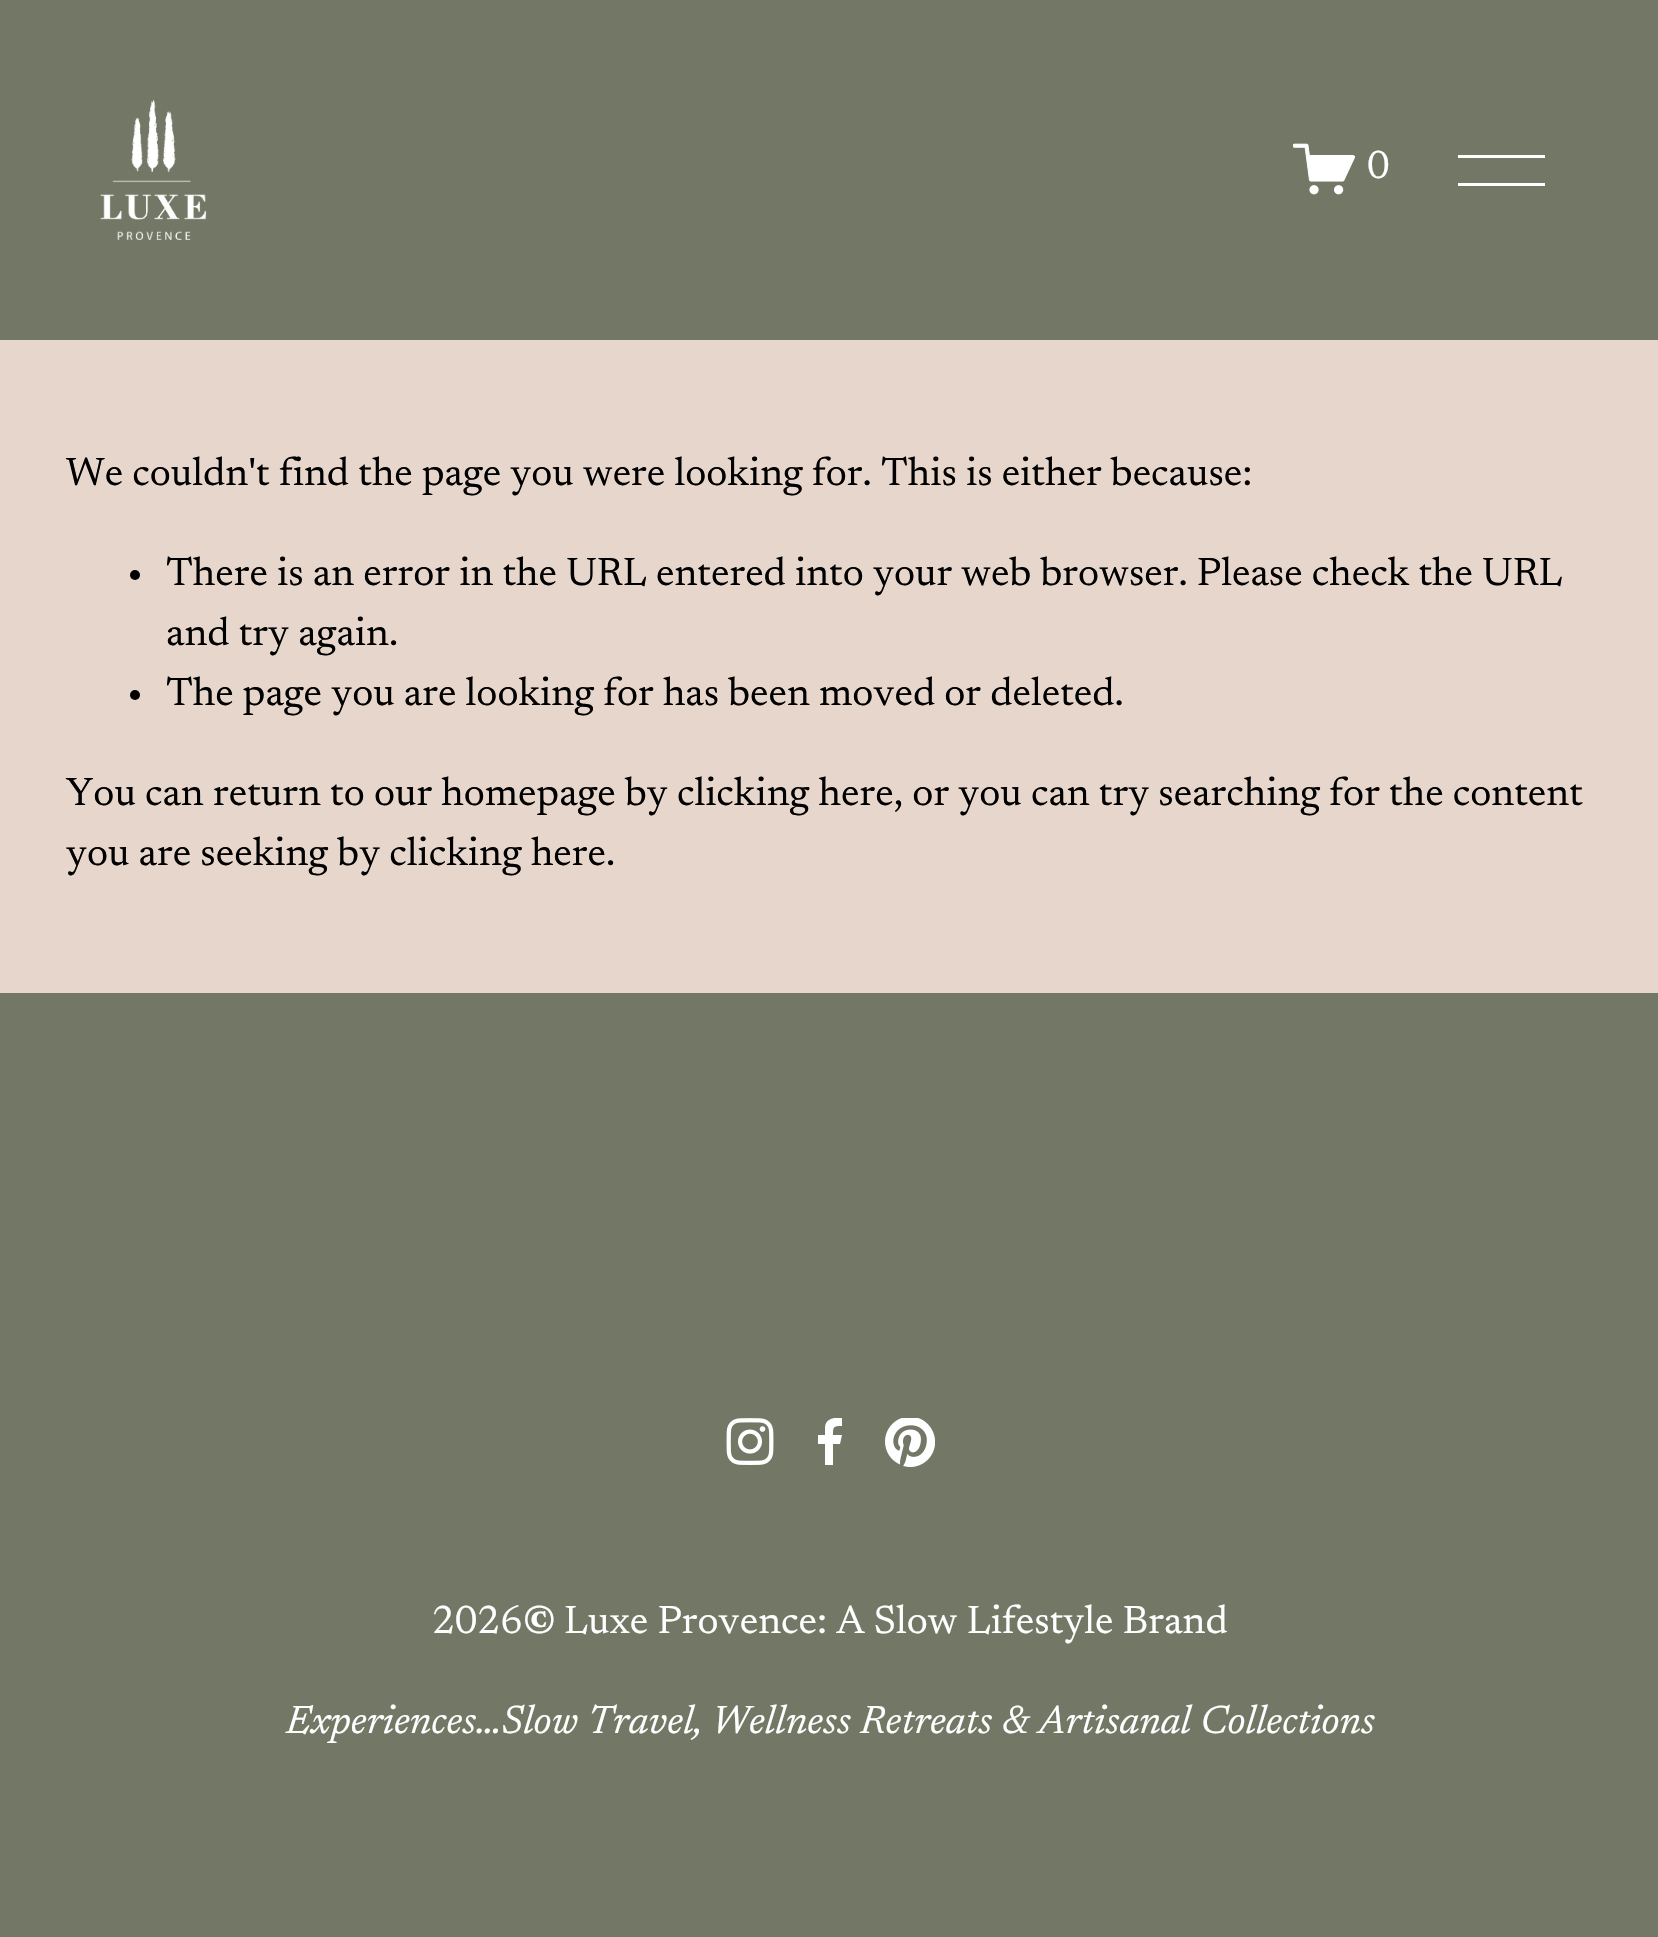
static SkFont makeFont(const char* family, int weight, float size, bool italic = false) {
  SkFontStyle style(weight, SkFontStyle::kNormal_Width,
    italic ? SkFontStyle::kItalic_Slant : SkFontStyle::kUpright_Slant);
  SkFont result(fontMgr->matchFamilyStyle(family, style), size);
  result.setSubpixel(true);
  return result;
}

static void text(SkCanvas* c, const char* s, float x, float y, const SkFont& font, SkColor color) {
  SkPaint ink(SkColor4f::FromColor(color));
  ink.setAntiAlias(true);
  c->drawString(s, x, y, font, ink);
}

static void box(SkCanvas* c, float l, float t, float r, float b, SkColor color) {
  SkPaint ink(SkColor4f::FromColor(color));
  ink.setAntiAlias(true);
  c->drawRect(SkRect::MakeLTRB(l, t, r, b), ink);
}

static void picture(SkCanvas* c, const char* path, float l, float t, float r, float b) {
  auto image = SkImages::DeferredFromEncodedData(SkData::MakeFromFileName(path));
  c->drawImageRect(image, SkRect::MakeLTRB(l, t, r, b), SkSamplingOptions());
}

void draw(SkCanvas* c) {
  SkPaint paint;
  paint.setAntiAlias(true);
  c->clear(0xffe7d6cb);
  box(c, 0, 0, 1658, 340, 0xff737765);
  picture(c, "img_01.png", 100, 99, 207, 240);
  picture(c, "img_02.png", 1293, 143, 1355, 195);
  SkFont face1 = makeFont("Newsreader", 400, 40);
  text(c, "0", 1367, 178, face1, 0xffffffff);
  box(c, 1458, 155, 1545, 158, 0xffffffff);
  box(c, 1458, 183, 1545, 186, 0xffffffff);
  text(c, "We couldn't find the page you were looking for. This is either because:", 66, 485, face1, 0xff000000);
  paint.setColor(0xff000000);
  c->drawCircle(135, 575, 5, paint);
  text(c, "There is an error in the URL entered into your web browser. Please check the URL", 166, 585, face1, 0xff000000);
  text(c, "and try again.", 166, 645, face1, 0xff000000);
  c->drawCircle(135, 695, 5, paint);
  text(c, "The page you are looking for has been moved or deleted.", 166, 705, face1, 0xff000000);
  text(c, "You can return to our homepage by clicking here, or you can try searching for the content", 66, 805, face1, 0xff000000);
  text(c, "you are seeking by clicking here.", 66, 865, face1, 0xff000000);
  box(c, 0, 993, 1658, 1937, 0xff737765);
  picture(c, "img_03.png", 726, 1418, 774, 1465);
  c->save();
  c->clipRect(SkRect::MakeLTRB(805, 1418, 855, 1468));
  paint.setColor(0xffffffff);
  c->drawPath(SkPathBuilder().moveTo(833, 1465).lineTo(833, 1444).lineTo(840, 1444).lineTo(842, 1435).lineTo(833, 1435).cubicTo(833, 1427, 833, 1426, 842, 1426).lineTo(842, 1418).cubicTo(835, 1417, 826, 1418, 825, 1427).lineTo(825, 1435).lineTo(818, 1435).lineTo(818, 1444).lineTo(825, 1444).lineTo(825, 1465).close().detach(), paint);
  c->restore();
  picture(c, "img_04.png", 885, 1418, 935, 1467);
  text(c, "2026", 432, 1633, face1, 0xffffffff);
  SkFont face2 = makeFont("Newsreader", 700, 40);
  text(c, "©", 523, 1633, face2, 0xffffffff);
  text(c, "Luxe Provence: A Slow Lifestyle Brand", 564, 1633, face1, 0xffffffff);
  SkFont face3 = makeFont("Newsreader", 400, 40, true);
  text(c, "Experiences…Slow Travel, Wellness Retreats & Artisanal Collections", 286, 1733, face3, 0xffffffff);
}
